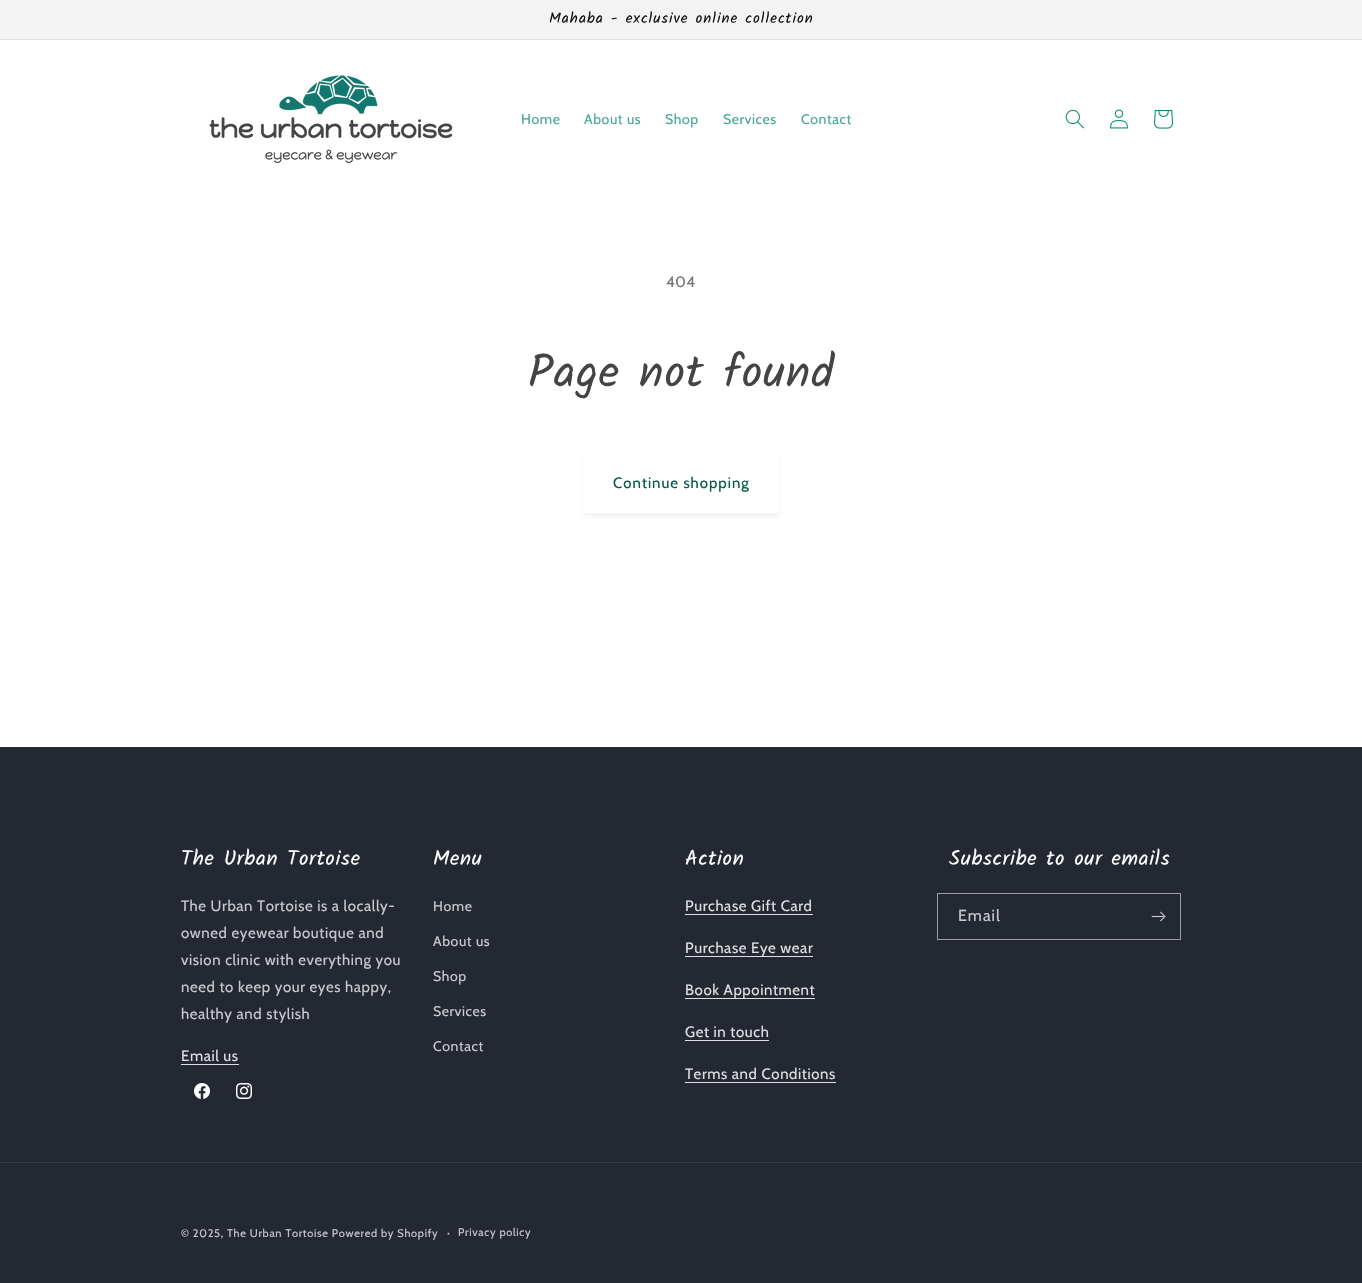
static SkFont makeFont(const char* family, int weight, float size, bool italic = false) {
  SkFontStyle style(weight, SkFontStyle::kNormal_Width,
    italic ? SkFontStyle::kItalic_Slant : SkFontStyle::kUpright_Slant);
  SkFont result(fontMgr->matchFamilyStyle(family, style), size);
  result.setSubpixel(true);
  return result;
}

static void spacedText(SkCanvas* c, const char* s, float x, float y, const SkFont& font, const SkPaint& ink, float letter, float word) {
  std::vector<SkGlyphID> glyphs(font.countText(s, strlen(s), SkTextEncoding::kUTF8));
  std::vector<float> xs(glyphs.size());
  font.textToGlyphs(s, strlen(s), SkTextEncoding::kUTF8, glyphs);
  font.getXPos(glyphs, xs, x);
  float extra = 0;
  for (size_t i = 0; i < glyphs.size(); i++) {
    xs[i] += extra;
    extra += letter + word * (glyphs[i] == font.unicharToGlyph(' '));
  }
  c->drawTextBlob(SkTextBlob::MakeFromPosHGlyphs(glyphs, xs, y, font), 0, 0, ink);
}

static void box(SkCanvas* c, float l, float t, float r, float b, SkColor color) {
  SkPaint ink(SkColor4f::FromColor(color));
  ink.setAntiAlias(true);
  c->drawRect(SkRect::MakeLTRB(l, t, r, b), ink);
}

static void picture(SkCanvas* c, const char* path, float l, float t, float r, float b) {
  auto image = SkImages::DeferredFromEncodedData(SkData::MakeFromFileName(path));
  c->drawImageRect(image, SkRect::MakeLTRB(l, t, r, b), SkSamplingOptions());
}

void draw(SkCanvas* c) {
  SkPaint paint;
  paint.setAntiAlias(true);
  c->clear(0xffffffff);
  box(c, 0, 0, 1362, 39, 0xfff3f3f3);
  box(c, 0, 39, 1362, 40, 0xffe1e1e1);
  SkFont face1 = makeFont("Kalam", 400, 15);
  paint.setColor(0xff121212);
  spacedText(c, "Mahaba - exclusive online collection", 549, 23, face1, paint, 1, 0);
  picture(c, "img_01.png", 209, 75, 453, 164);
  SkFont face2 = makeFont("Cabin", 400, 14);
  paint.setColor(0xff48a998);
  spacedText(c, "Home", 521, 124, face2, paint, 0.6f, 0);
  spacedText(c, "About us", 584, 124, face2, paint, 0.6f, 0);
  spacedText(c, "Shop", 665, 124, face2, paint, 0.6f, 0);
  spacedText(c, "Services", 723, 124, face2, paint, 0.6f, 0);
  spacedText(c, "Contact", 801, 124, face2, paint, 0.6f, 0);
  picture(c, "img_02.png", 1065, 109, 1084, 129);
  picture(c, "img_03.png", 1110, 109, 1128, 129);
  picture(c, "img_04.png", 1154, 110, 1174, 129);
  SkFont face3 = makeFont("Cabin", 400, 15);
  paint.setColor(0xff747272);
  spacedText(c, "404", 666, 287, face3, paint, 0.6f, 0);
  SkFont face4 = makeFont("Kalam", 400, 46);
  paint.setColor(0xff454343);
  spacedText(c, "Page not found", 528, 387, face4, paint, 0.7f, 0);
  c->save();
  c->clipPath(SkPathBuilder(SkPathFillType::kEvenOdd).moveTo(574, 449).lineTo(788, 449).lineTo(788, 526).lineTo(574, 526).close().moveTo(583, 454).lineTo(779, 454).lineTo(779, 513).lineTo(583, 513).close().detach(), true);
  paint.setColor(0x0d121212);
  paint.setMaskFilter(SkMaskFilter::MakeBlur(kNormal_SkBlurStyle, 2.5f));
  c->drawRect(SkRect::MakeLTRB(583, 458, 779, 517), paint);
  paint.setMaskFilter(nullptr);
  c->restore();
  paint.setColor(0xff06594b);
  spacedText(c, "Continue shopping", 613, 488, face3, paint, 1, 0);
  box(c, 0, 747, 1362, 1283, 0xff242833);
  SkFont face5 = makeFont("Kalam", 400, 20.75f);
  paint.setColor(0xffffffff);
  spacedText(c, "The Urban Tortoise", 181, 865, face5, paint, 0.7f, 0);
  paint.setColor(0xffc8c9cc);
  spacedText(c, "The Urban Tortoise is a locally-", 181, 911, face3, paint, 0.6f, 0);
  spacedText(c, "owned eyewear boutique and", 181, 938, face3, paint, 0.6f, 0);
  spacedText(c, "vision clinic with everything you", 181, 965, face3, paint, 0.6f, 0);
  spacedText(c, "need to keep your eyes happy,", 181, 992, face3, paint, 0.6f, 0);
  spacedText(c, "healthy and stylish", 181, 1019, face3, paint, 0.6f, 0);
  paint.setColor(0xffdedfe0);
  spacedText(c, "Email us", 181, 1061, face3, paint, 0.6f, 0);
  box(c, 181, 1064, 239, 1065, 0xffdedfe0);
  picture(c, "img_05.png", 194, 1083, 210, 1099);
  picture(c, "img_06.png", 236, 1083, 252, 1099);
  paint.setColor(0xffffffff);
  spacedText(c, "Menu", 433, 865, face5, paint, 0.7f, 0);
  paint.setColor(0xffc8c9cc);
  spacedText(c, "Home", 433, 911, face2, paint, 0.6f, 0);
  spacedText(c, "About us", 433, 946, face2, paint, 0.6f, 0);
  spacedText(c, "Shop", 433, 981, face2, paint, 0.6f, 0);
  spacedText(c, "Services", 433, 1016, face2, paint, 0.6f, 0);
  spacedText(c, "Contact", 433, 1051, face2, paint, 0.6f, 0);
  paint.setColor(0xffffffff);
  spacedText(c, "Action", 685, 865, face5, paint, 0.7f, 0);
  paint.setColor(0xffdedfe0);
  spacedText(c, "Purchase Gift Card", 685, 911, face3, paint, 0.6f, 0);
  box(c, 685, 914, 813, 915, 0xffdedfe0);
  box(c, 685, 956, 813, 957, 0xffdedfe0);
  spacedText(c, "Purchase Eye wear", 685, 953, face3, paint, 0.6f, 0);
  box(c, 685, 998, 815, 999, 0xffdedfe0);
  spacedText(c, "Book Appointment", 685, 995, face3, paint, 0.6f, 0);
  spacedText(c, "Get in touch", 685, 1037, face3, paint, 0.6f, 0);
  box(c, 685, 1040, 769, 1041, 0xffdedfe0);
  spacedText(c, "Terms and Conditions", 685, 1079, face3, paint, 0.6f, 0);
  box(c, 685, 1082, 836, 1083, 0xffdedfe0);
  paint.setColor(0xffffffff);
  spacedText(c, "Subscribe to our emails", 949, 865, face5, paint, 0.7f, 0);
  paint.setStyle(SkPaint::kStroke_Style);
  paint.setStrokeWidth(1);
  paint.setColor(0xff9c9ea3);
  c->drawRect(SkRect::MakeLTRB(937.5f, 893.5f, 1180.5f, 939.5f), paint);
  SkFont face6 = makeFont("Cabin", 400, 16);
  paint.setStyle(SkPaint::kFill_Style);
  paint.setColor(0xffc8c9cc);
  spacedText(c, "Email", 958, 921, face6, paint, 1, 0);
  picture(c, "img_07.png", 1151, 911, 1166, 922);
  box(c, 0, 1162, 1362, 1163, 0xff363943);
  SkFont face7 = makeFont("Cabin", 400, 11);
  spacedText(c, "© 2025, The Urban Tortoise Powered by Shopify", 181, 1237, face7, paint, 0.7f, 0);
  SkFont face8 = makeFont("Cabin", 400, 12);
  spacedText(c, "·", 447, 1237, face8, paint, 0.7f, 0);
  spacedText(c, "Privacy policy", 458, 1236, face7, paint, 0.7f, 0);
}
